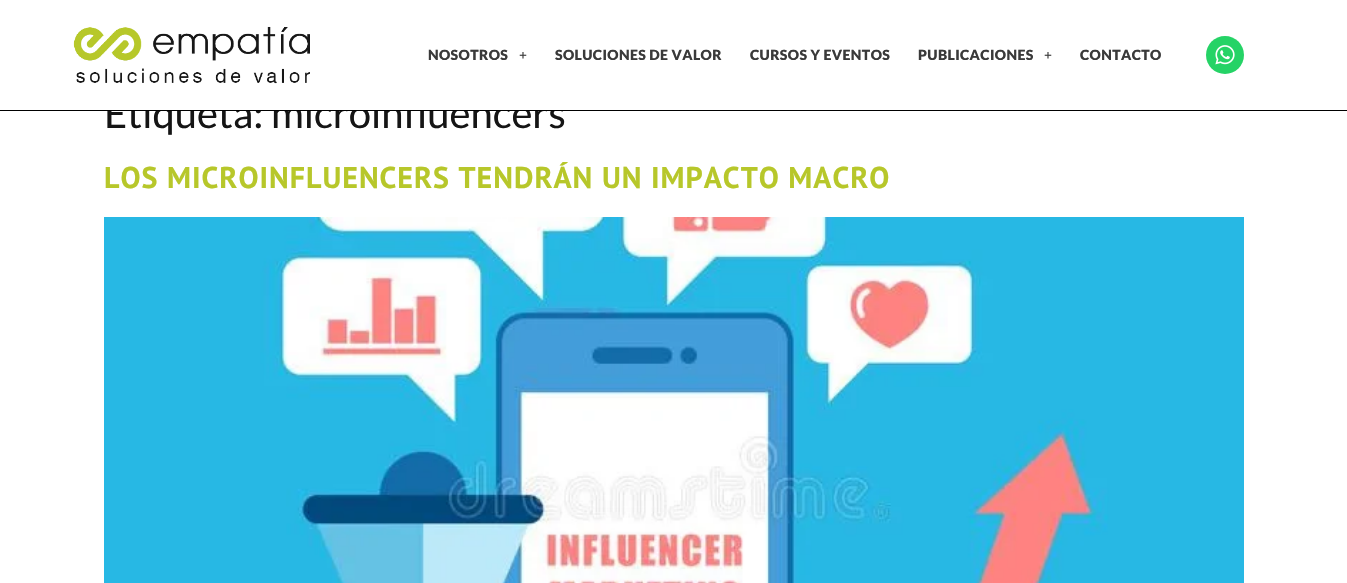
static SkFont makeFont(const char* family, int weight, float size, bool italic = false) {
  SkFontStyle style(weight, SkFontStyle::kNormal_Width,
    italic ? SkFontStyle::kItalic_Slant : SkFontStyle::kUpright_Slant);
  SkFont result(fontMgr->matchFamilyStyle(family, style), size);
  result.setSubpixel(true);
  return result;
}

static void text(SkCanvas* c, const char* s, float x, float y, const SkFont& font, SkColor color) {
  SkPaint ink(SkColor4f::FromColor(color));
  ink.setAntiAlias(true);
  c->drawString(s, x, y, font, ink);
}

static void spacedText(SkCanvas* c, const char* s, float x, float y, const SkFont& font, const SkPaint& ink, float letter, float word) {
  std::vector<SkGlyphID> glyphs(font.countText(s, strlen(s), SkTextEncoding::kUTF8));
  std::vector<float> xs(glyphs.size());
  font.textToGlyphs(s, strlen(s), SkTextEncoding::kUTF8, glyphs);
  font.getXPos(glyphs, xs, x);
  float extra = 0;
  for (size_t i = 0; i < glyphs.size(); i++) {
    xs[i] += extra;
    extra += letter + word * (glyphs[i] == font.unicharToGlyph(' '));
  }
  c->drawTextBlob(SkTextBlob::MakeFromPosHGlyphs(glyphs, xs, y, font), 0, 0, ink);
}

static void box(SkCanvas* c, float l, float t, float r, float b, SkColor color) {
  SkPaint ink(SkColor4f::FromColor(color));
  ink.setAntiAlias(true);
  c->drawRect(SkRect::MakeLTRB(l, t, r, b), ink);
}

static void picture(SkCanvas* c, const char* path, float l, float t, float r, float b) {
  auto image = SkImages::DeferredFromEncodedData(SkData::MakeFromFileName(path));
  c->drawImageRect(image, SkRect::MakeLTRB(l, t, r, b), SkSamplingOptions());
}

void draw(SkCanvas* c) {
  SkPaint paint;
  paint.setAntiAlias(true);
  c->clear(0xffffffff);
  SkFont face1 = makeFont("Lato", 400, 40);
  text(c, "Etiqueta: microinfluencers", 104, 128, face1, 0xff151515);
  box(c, 106, 98, 564, 110, 0xffffffff);
  box(c, 0, 110, 1347, 111, 0xff000000);
  picture(c, "img_01.png", 73, 26, 310, 84);
  SkFont face2 = makeFont("Lato", 900, 14);
  paint.setColor(0xff3a3a3a);
  spacedText(c, "NOSOTROS", 428, 60, face2, paint, 0.4f, 0);
  SkFont face3 = makeFont("Liberation Serif", 700, 14);
  spacedText(c, "+", 519, 60, face3, paint, 0.4f, 0);
  spacedText(c, "SOLUCIONES DE VALOR", 555, 60, face2, paint, 0.4f, 0);
  spacedText(c, "CURSOS Y EVENTOS", 750, 60, face2, paint, 0.4f, 0);
  spacedText(c, "PUBLICACIONES", 918, 60, face2, paint, 0.4f, 0);
  spacedText(c, "+", 1044, 60, face3, paint, 0.4f, 0);
  spacedText(c, "CONTACTO", 1080, 60, face2, paint, 0.4f, 0);
  paint.setColor(0xff25d366);
  c->drawCircle(1225, 55, 19, paint);
  picture(c, "img_02.png", 1215, 45, 1235, 65);
  SkFont face4 = makeFont("PT Sans", 700, 30);
  paint.setColor(0xffb7c72a);
  spacedText(c, "LOS MICROINFLUENCERS TENDRÁN UN IMPACTO MACRO", 104, 188, face4, paint, 1, 0);
  picture(c, "img_03.png", 104, 217, 1244, 583);
}
